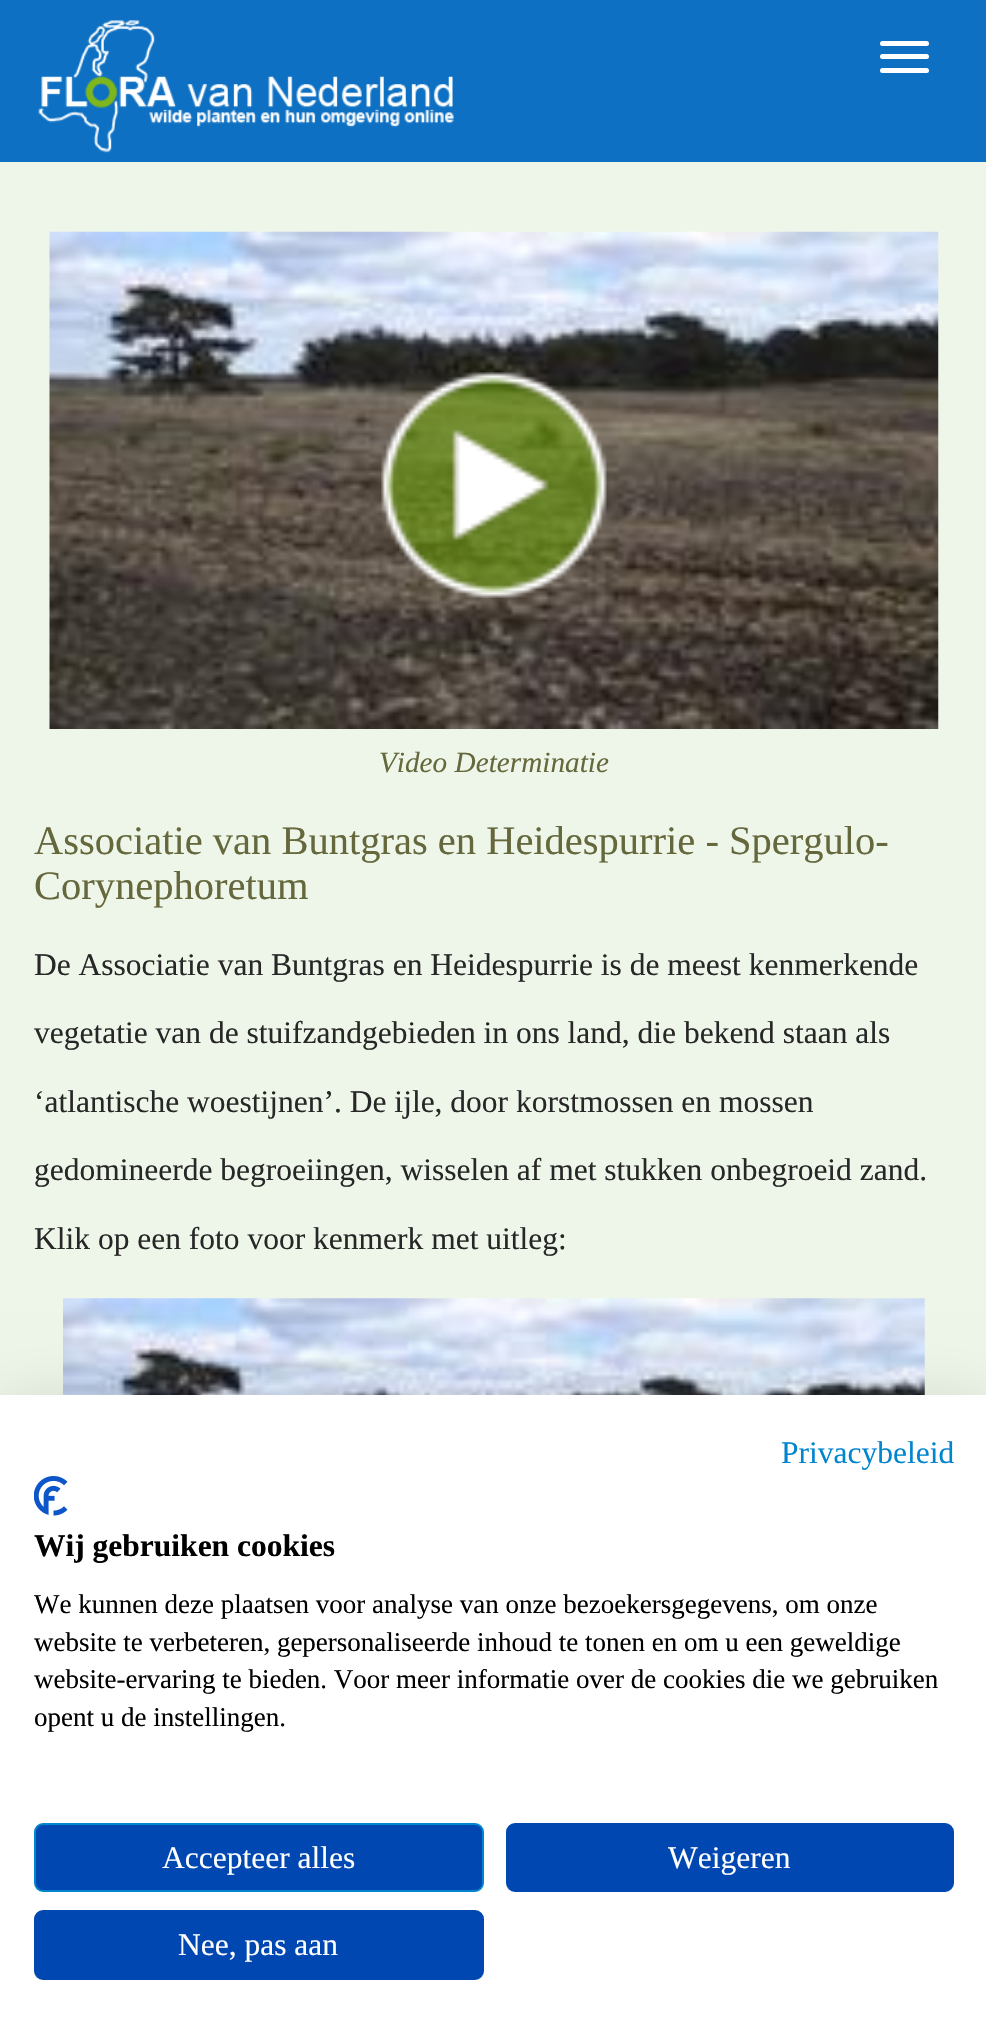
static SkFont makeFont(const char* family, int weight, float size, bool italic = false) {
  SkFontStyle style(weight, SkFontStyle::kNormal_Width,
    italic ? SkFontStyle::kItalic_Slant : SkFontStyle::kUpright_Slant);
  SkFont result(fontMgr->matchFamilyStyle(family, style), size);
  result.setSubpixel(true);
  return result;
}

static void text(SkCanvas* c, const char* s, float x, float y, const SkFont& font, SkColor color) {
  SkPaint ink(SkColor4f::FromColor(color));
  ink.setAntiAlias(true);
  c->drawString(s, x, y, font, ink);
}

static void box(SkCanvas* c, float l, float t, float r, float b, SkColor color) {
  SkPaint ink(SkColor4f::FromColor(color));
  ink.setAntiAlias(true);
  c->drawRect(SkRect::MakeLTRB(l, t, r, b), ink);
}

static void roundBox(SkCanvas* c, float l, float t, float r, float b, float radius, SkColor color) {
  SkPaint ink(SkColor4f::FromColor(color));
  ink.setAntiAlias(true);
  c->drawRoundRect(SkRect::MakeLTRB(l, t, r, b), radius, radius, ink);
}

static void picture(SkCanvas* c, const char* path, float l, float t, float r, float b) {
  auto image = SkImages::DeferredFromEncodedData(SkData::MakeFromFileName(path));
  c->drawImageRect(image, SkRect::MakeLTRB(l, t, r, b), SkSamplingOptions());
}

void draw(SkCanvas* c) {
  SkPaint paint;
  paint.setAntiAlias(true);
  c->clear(0xffedf6e8);
  box(c, 0, 0, 986, 162, 0xff0e70c3);
  picture(c, "img_01.png", 38, 20, 454, 153);
  roundBox(c, 880, 41, 929, 46, 2.5f, 0xffffffff);
  roundBox(c, 880, 54, 929, 59, 2.5f, 0xffffffff);
  roundBox(c, 880, 68, 929, 73, 2.5f, 0xffffffff);
  picture(c, "img_02.png", 49, 231, 939, 729);
  picture(c, "img_03.png", 381, 372, 607, 598);
  SkFont face1 = makeFont("Liberation Serif", 400, 29.25f, true);
  text(c, "Video Determinatie", 379, 772, face1, 0xff65673c);
  SkFont face2 = makeFont("Liberation Serif", 400, 40.5f);
  text(c, "Associatie van Buntgras en Heidespurrie - Spergulo-", 34, 854, face2, 0xff65673c);
  text(c, "Corynephoretum", 34, 899, face2, 0xff65673c);
  SkFont face3 = makeFont("Liberation Serif", 400, 31.5f);
  text(c, "De Associatie van Buntgras en Heidespurrie is de meest kenmerkende", 34, 975, face3, 0xff272727);
  text(c, "vegetatie van de stuifzandgebieden in ons land, die bekend staan als", 34, 1043, face3, 0xff272727);
  text(c, "‘atlantische woestijnen’. De ijle, door korstmossen en mossen", 34, 1112, face3, 0xff272727);
  text(c, "gedomineerde begroeiingen, wisselen af met stukken onbegroeid zand.", 34, 1180, face3, 0xff272727);
  text(c, "Klik op een foto voor kenmerk met uitleg:", 34, 1249, face3, 0xff272727);
  picture(c, "img_04.png", 63, 1298, 925, 1395);
  paint.setColor(0x1a000000);
  paint.setMaskFilter(SkMaskFilter::MakeBlur(kNormal_SkBlurStyle, 27));
  c->drawRect(SkRect::MakeLTRB(0, 1395, 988, 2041), paint);
  paint.setMaskFilter(nullptr);
  box(c, 0, 1395, 986, 2039, 0xffffffff);
  text(c, "Privacybeleid", 781, 1463, face3, 0xff0085cf);
  picture(c, "img_05.png", 34, 1476, 68, 1516);
  SkFont face4 = makeFont("Liberation Serif", 700, 31.5f);
  text(c, "Wij gebruiken cookies", 34, 1556, face4, 0xff000000);
  SkFont face5 = makeFont("Liberation Serif", 400, 27);
  text(c, "We kunnen deze plaatsen voor analyse van onze bezoekersgegevens, om onze", 34, 1613, face5, 0xff000000);
  text(c, "website te verbeteren, gepersonaliseerde inhoud te tonen en om u een geweldige", 34, 1651, face5, 0xff000000);
  text(c, "website-ervaring te bieden. Voor meer informatie over de cookies die we gebruiken", 34, 1688, face5, 0xff000000);
  text(c, "opent u de instellingen.", 34, 1726, face5, 0xff000000);
  paint.setColor(0xff0047b2);
  c->drawRoundRect(SkRect::MakeLTRB(35, 1824, 483, 1891), 8, 8, paint);
  paint.setStyle(SkPaint::kStroke_Style);
  paint.setStrokeWidth(2);
  paint.setColor(0xff0085cf);
  c->drawRoundRect(SkRect::MakeLTRB(35, 1824, 483, 1891), 8, 8, paint);
  text(c, "Accepteer alles", 162, 1868, face3, 0xffffffff);
  paint.setStyle(SkPaint::kFill_Style);
  paint.setColor(0xff0047b2);
  c->drawRoundRect(SkRect::MakeLTRB(507, 1824, 953, 1891), 8, 8, paint);
  paint.setStyle(SkPaint::kStroke_Style);
  c->drawRoundRect(SkRect::MakeLTRB(507, 1824, 953, 1891), 8, 8, paint);
  text(c, "Weigeren", 668, 1868, face3, 0xffffffff);
  paint.setStyle(SkPaint::kFill_Style);
  c->drawRoundRect(SkRect::MakeLTRB(35, 1911, 483, 1979), 8, 8, paint);
  paint.setStyle(SkPaint::kStroke_Style);
  c->drawRoundRect(SkRect::MakeLTRB(35, 1911, 483, 1979), 8, 8, paint);
  text(c, "Nee, pas aan", 178, 1955, face3, 0xffffffff);
}
